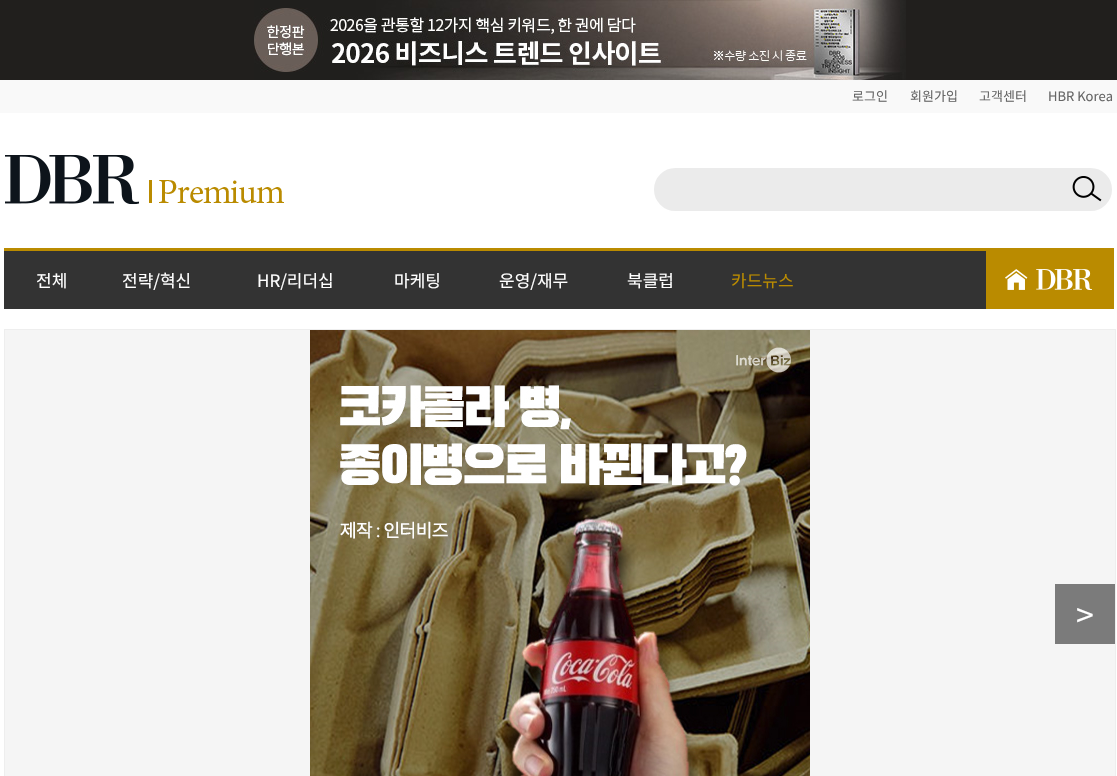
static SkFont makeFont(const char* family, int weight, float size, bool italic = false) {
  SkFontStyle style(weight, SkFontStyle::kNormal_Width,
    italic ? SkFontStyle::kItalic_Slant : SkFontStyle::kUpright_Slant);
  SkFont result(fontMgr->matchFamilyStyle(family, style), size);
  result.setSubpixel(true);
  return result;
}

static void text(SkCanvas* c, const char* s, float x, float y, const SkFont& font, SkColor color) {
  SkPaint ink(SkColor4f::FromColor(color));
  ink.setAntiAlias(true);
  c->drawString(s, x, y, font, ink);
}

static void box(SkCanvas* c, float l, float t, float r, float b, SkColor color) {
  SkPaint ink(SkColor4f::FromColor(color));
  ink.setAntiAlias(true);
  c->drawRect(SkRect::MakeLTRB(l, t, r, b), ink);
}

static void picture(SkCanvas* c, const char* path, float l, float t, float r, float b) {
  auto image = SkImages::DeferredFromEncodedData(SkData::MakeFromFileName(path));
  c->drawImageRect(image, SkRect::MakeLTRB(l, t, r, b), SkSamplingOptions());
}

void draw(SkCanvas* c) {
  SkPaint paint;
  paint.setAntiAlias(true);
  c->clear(0xffffffff);
  box(c, 0, 0, 1117, 80, 0xff211f1d);
  picture(c, "img_01.png", 254, 0, 906, 80);
  box(c, 0, 80, 1117, 113, 0xfff9f9f9);
  SkFont face1 = makeFont("Noto Sans KR", 400, 13);
  text(c, "로그인", 852, 101, face1, 0xff666666);
  text(c, "회원가입", 910, 101, face1, 0xff666666);
  text(c, "고객센터", 979, 101, face1, 0xff666666);
  text(c, "HBR Korea", 1048, 101, face1, 0xff666666);
  picture(c, "img_02.png", 5, 155, 284, 205);
  paint.setColor(0xffebebeb);
  c->drawRoundRect(SkRect::MakeLTRB(653, 167, 1113, 212), 22.5f, 22.5f, paint);
  paint.setStyle(SkPaint::kStroke_Style);
  paint.setStrokeWidth(2);
  paint.setColor(0xffffffff);
  c->drawRoundRect(SkRect::MakeLTRB(653, 167, 1113, 212), 22.5f, 22.5f, paint);
  picture(c, "img_03.png", 1072, 176, 1102, 202);
  box(c, 4, 248, 1114, 251, 0xffba8b00);
  box(c, 4, 251, 986, 309, 0xff333333);
  SkFont face2 = makeFont("Noto Sans KR", 400, 17);
  text(c, "전체", 36, 287, face2, 0xffffffff);
  text(c, "전략/혁신", 122, 287, face2, 0xffffffff);
  text(c, "HR/리더십", 257, 287, face2, 0xffffffff);
  text(c, "마케팅", 394, 287, face2, 0xffffffff);
  text(c, "운영/재무", 499, 287, face2, 0xffffffff);
  text(c, "북클럽", 627, 287, face2, 0xffffffff);
  text(c, "카드뉴스", 731, 287, face2, 0xffba8b00);
  box(c, 986, 251, 1114, 309, 0xffba8b00);
  picture(c, "img_04.png", 1005, 269, 1092, 290);
  paint.setStyle(SkPaint::kFill_Style);
  paint.setColor(0xfff5f5f5);
  c->drawRect(SkRect::MakeLTRB(4.5f, 329.5f, 1115.5f, 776.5f), paint);
  paint.setStyle(SkPaint::kStroke_Style);
  paint.setStrokeWidth(1);
  paint.setColor(0xffeeeeee);
  c->drawRect(SkRect::MakeLTRB(4.5f, 329.5f, 1115.5f, 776.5f), paint);
  picture(c, "img_05.png", 310, 330, 810, 776);
  box(c, 1055, 584, 1115, 644, 0xff7b7b7b);
  SkFont face3 = makeFont("Noto Sans KR", 400, 32);
  text(c, ">", 1076, 627, face3, 0xffffffff);
}
